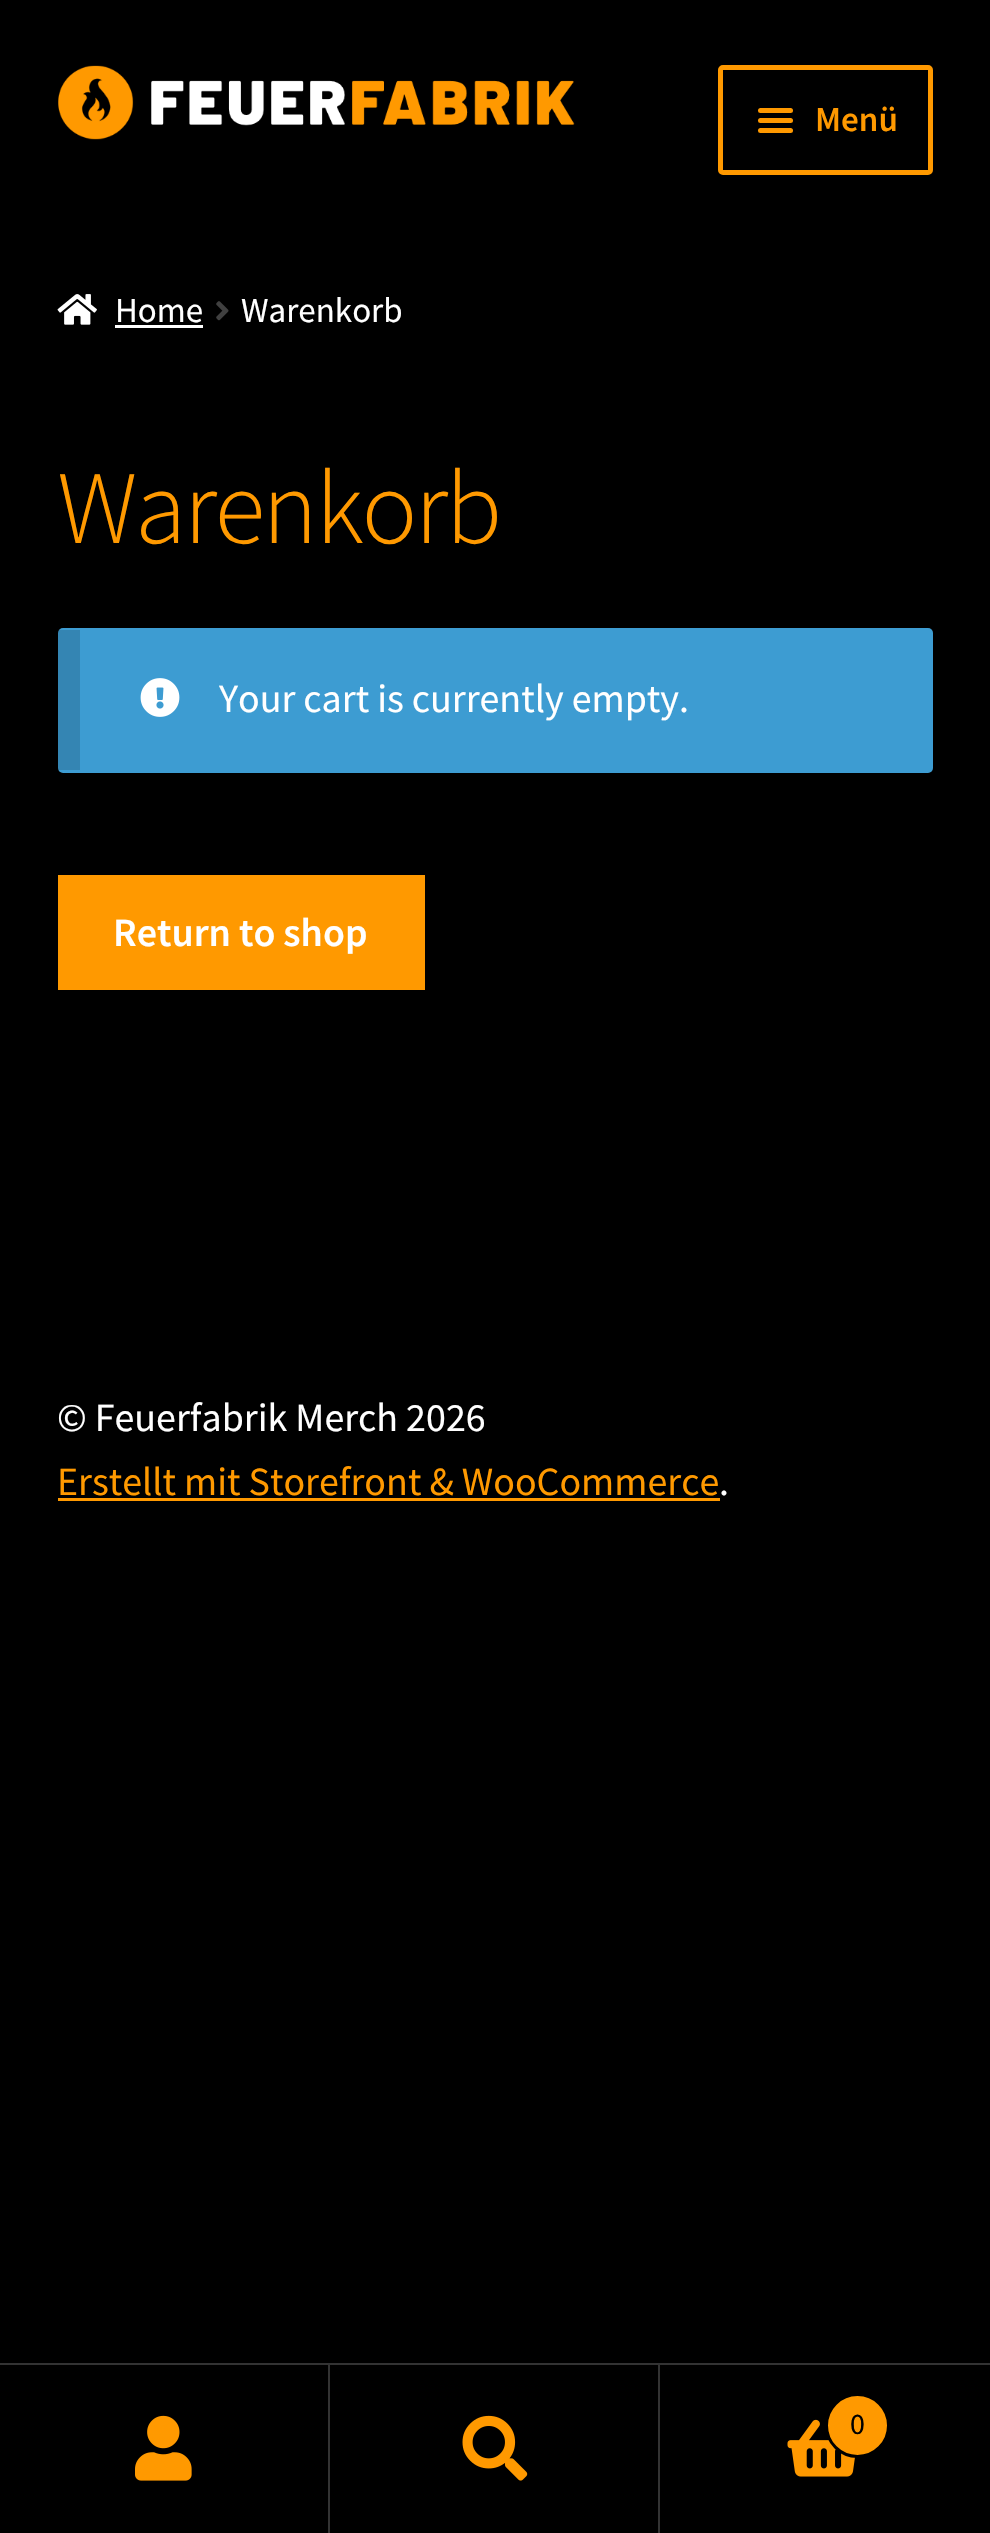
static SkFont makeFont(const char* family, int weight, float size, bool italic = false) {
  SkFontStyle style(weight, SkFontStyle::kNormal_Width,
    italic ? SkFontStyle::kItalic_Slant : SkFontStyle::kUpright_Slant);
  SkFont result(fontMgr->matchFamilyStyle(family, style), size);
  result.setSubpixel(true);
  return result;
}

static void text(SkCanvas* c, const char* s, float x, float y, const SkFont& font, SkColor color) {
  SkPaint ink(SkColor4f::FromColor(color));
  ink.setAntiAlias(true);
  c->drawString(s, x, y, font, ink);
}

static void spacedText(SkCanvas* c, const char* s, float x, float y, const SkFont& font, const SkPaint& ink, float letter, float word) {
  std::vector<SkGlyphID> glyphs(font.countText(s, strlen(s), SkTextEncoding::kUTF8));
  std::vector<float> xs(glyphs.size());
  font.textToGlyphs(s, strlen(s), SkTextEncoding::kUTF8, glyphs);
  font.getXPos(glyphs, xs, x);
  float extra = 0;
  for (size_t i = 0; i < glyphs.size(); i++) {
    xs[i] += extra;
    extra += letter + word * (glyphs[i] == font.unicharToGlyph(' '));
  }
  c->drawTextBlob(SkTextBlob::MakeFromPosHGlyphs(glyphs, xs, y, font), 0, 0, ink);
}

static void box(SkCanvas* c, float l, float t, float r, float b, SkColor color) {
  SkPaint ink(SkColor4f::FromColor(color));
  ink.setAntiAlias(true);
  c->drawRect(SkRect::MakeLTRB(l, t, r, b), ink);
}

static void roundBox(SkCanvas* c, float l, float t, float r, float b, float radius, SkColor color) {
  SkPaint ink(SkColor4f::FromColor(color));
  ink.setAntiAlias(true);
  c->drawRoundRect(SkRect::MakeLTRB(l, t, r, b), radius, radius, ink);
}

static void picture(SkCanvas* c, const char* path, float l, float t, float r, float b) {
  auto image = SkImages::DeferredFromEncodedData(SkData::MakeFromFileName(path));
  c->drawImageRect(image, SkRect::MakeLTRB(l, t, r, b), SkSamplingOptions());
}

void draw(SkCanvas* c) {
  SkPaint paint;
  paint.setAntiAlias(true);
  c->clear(0xff000000);
  picture(c, "img_01.png", 58, 65, 575, 140);
  paint.setStyle(SkPaint::kStroke_Style);
  paint.setStrokeWidth(5);
  paint.setColor(0xffff9900);
  c->drawRoundRect(SkRect::MakeLTRB(720.5f, 67.5f, 930.5f, 172.5f), 2.5f, 2.5f, paint);
  roundBox(c, 758, 108, 793, 113, 2.5f, 0xffff9900);
  roundBox(c, 758, 118, 793, 123, 2.5f, 0xffff9900);
  SkFont face1 = makeFont("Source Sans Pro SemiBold", 600, 35);
  text(c, "Menü", 815, 131, face1, 0xffff9900);
  roundBox(c, 758, 128, 793, 133, 2.5f, 0xffff9900);
  picture(c, "img_02.png", 57, 294, 97, 325);
  SkFont face2 = makeFont("Source Sans Pro", 400, 35);
  text(c, "Home", 115, 322, face2, 0xffffffff);
  box(c, 115, 325, 203, 328, 0xffffffff);
  picture(c, "img_03.png", 216, 301, 229, 321);
  text(c, "Warenkorb", 241, 322, face2, 0xffffffff);
  SkFont face3 = makeFont("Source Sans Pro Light", 300, 104.5f);
  paint.setStyle(SkPaint::kFill_Style);
  spacedText(c, "Warenkorb", 57, 543, face3, paint, -2.5f, 0);
  roundBox(c, 58, 628, 933, 773, 5, 0xff3d9cd2);
  box(c, 58, 630, 80, 770, 0x26000000);
  picture(c, "img_04.png", 140, 678, 180, 717);
  SkFont face4 = makeFont("Source Sans Pro", 400, 40);
  text(c, "Your cart is currently empty.", 219, 712, face4, 0xffffffff);
  box(c, 58, 875, 425, 990, 0xffff9900);
  SkFont face5 = makeFont("Source Sans Pro SemiBold", 600, 40);
  text(c, "Return to shop", 113, 946, face5, 0xffffffff);
  text(c, "© Feuerfabrik Merch 2026", 57, 1431, face4, 0xffffffff);
  text(c, "Erstellt mit Storefront & WooCommerce", 57, 1495, face4, 0xffff9900);
  box(c, 58, 1498, 720, 1501, 0xffff9900);
  text(c, ".", 719, 1495, face4, 0xffffffff);
  box(c, 0, 2363, 990, 2365, 0xff333333);
  box(c, 328, 2365, 330, 2533, 0x33ffffff);
  picture(c, "img_05.png", 135, 2415, 192, 2481);
  box(c, 658, 2365, 660, 2533, 0xff333333);
  picture(c, "img_06.png", 462, 2415, 528, 2481);
  picture(c, "img_07.png", 787, 2419, 855, 2477);
  c->drawCircle(857.5f, 2425.5f, 31, paint);
  paint.setStyle(SkPaint::kStroke_Style);
  paint.setStrokeWidth(3);
  paint.setColor(0xff000000);
  c->drawCircle(857.5f, 2425.5f, 31, paint);
  SkFont face6 = makeFont("Source Sans Pro", 400, 30);
  text(c, "0", 850, 2434, face6, 0xff000000);
}
